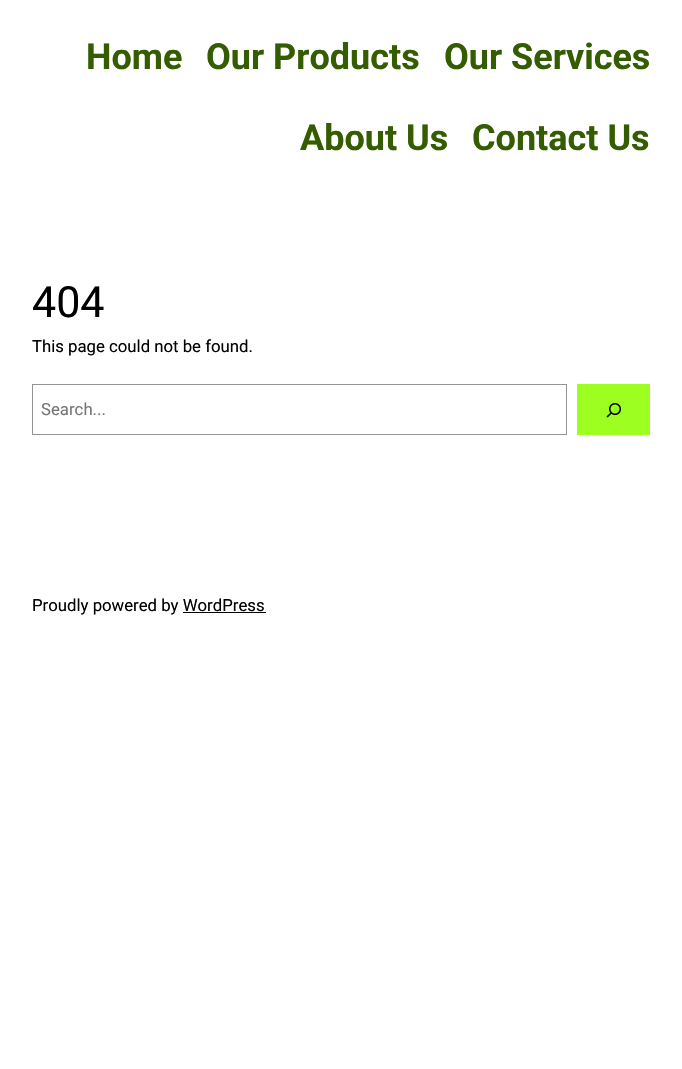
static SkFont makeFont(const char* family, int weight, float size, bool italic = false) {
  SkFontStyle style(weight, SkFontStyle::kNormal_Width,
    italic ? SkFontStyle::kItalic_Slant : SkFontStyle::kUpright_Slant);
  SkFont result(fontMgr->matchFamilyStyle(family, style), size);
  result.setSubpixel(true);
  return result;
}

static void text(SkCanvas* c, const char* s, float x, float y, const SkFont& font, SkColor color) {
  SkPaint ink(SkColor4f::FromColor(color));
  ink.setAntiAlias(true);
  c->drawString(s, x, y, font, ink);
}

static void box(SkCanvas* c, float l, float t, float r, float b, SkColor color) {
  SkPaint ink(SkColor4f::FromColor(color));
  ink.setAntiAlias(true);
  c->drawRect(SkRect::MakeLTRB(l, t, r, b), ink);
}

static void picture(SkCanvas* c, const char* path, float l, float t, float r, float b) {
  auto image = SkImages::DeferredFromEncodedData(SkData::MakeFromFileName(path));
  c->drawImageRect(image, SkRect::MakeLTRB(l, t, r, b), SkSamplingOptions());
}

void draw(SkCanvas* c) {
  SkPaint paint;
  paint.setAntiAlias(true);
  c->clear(0xffffffff);
  SkFont face1 = makeFont("Roboto", 700, 36);
  text(c, "Home", 86, 69, face1, 0xff345c00);
  text(c, "Our Products", 206, 69, face1, 0xff345c00);
  text(c, "Our Services", 444, 69, face1, 0xff345c00);
  text(c, "About Us", 300, 150, face1, 0xff345c00);
  text(c, "Contact Us", 472, 150, face1, 0xff345c00);
  SkFont face2 = makeFont("Roboto", 400, 43);
  text(c, "404", 32, 317, face2, 0xff000000);
  SkFont face3 = makeFont("Roboto", 400, 16.75f);
  text(c, "This page could not be found.", 32, 352, face3, 0xff000000);
  paint.setStyle(SkPaint::kStroke_Style);
  paint.setStrokeWidth(1);
  paint.setColor(0xff949494);
  c->drawRect(SkRect::MakeLTRB(32.5f, 384.5f, 566.5f, 434.5f), paint);
  text(c, "Search...", 41, 415, face3, 0xff757575);
  box(c, 577, 384, 650, 435, 0xff9dff20);
  picture(c, "img_01.png", 606, 403, 622, 418);
  text(c, "Proudly powered by WordPress", 32, 611, face3, 0xff000000);
  box(c, 183, 612, 266, 613, 0xff000000);
}
